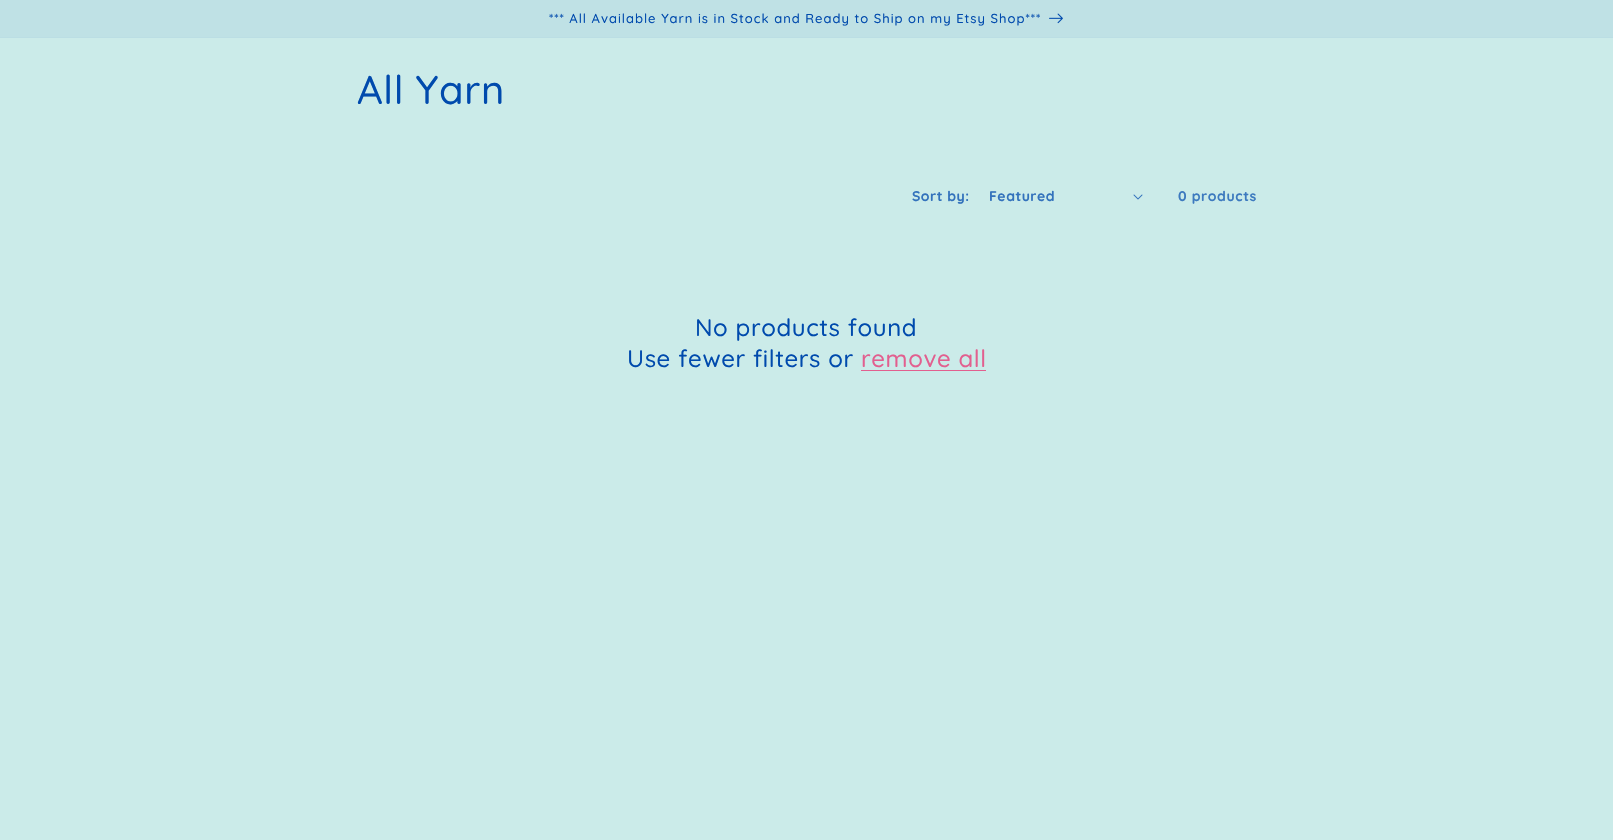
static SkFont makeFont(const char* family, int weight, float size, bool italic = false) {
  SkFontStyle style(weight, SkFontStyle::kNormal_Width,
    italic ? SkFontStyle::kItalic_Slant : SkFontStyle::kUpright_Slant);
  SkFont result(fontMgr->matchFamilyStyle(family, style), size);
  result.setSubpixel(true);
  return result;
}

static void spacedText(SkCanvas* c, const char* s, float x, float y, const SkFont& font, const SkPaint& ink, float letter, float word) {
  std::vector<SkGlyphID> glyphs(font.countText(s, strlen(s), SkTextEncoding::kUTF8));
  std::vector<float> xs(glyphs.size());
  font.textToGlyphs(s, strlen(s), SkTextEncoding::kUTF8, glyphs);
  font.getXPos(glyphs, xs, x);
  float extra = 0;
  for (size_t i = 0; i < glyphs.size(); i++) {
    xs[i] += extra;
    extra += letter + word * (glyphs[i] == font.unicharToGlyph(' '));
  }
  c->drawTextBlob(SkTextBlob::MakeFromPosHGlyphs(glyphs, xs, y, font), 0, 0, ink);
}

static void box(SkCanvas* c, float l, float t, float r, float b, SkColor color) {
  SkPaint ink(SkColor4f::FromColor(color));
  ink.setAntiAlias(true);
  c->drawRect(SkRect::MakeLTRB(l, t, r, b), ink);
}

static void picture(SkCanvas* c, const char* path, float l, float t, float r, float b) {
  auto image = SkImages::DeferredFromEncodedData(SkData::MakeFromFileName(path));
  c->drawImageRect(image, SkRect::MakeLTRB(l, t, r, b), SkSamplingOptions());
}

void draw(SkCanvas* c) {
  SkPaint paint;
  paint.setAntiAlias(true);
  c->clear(0xffcbebe9);
  box(c, 0, 37, 1613, 38, 0xffbbdee4);
  box(c, 0, 0, 1613, 37, 0xffbfe1e5);
  SkFont face1 = makeFont("Quicksand", 500, 13);
  paint.setColor(0xff004aad);
  spacedText(c, "*** All Available Yarn is in Stock and Ready to Ship on my Etsy Shop***", 549, 23, face1, paint, 1, 0);
  picture(c, "img_01.png", 1049, 13, 1063, 24);
  SkFont face2 = makeFont("Quicksand", 500, 40);
  spacedText(c, "All Yarn", 357, 104, face2, paint, 0.6f, 0);
  SkFont face3 = makeFont("Quicksand", 700, 14);
  paint.setColor(0xff3372bc);
  spacedText(c, "Sort by:", 912, 201, face3, paint, 0.5f, 0);
  spacedText(c, "Featured", 989, 201, face3, paint, 0.5f, 0);
  picture(c, "img_02.png", 1133, 194, 1143, 200);
  paint.setColor(0xff3d7abf);
  spacedText(c, "0 products", 1178, 201, face3, paint, 0.6f, 0);
  SkFont face4 = makeFont("Quicksand", 500, 24);
  paint.setColor(0xff004aad);
  spacedText(c, "No products found", 695, 336, face4, paint, 0.6f, 0);
  spacedText(c, "Use fewer filters or", 627, 367, face4, paint, 0.6f, 0);
  paint.setColor(0xffe25f8f);
  spacedText(c, "remove all", 861, 367, face4, paint, 0.6f, 0);
  box(c, 861, 370, 986, 371, 0xffe25f8f);
}
